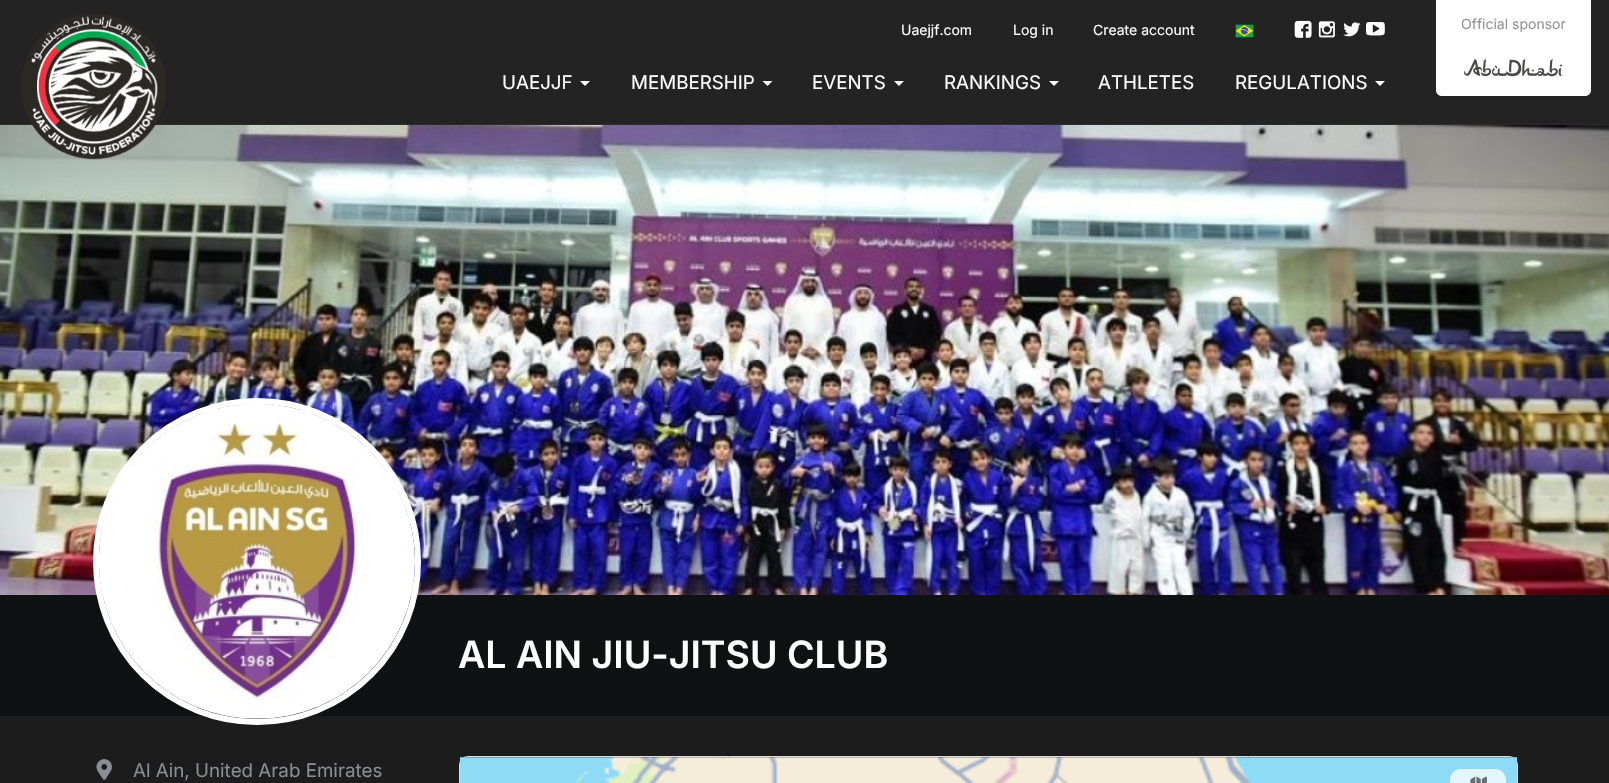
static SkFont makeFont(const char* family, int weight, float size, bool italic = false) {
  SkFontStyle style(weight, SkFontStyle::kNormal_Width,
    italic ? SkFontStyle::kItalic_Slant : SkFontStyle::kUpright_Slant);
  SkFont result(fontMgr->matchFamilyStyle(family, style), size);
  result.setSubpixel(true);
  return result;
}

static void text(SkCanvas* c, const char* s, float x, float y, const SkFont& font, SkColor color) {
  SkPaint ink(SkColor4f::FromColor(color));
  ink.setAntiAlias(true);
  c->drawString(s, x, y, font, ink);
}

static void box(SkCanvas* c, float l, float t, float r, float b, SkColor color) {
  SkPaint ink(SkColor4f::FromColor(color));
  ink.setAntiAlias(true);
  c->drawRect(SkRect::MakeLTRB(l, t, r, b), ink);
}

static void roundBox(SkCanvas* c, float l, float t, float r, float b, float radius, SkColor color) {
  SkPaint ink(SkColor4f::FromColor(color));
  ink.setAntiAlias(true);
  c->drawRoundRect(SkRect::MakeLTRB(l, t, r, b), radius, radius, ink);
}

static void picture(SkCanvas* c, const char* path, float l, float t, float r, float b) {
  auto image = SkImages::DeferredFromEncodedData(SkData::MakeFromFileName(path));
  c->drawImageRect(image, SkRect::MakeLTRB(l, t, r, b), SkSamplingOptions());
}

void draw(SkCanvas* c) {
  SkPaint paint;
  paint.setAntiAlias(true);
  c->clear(0xff1c1c1c);
  box(c, 0, 0, 1609, 124, 0xff232323);
  box(c, 0, 124, 1609, 125, 0xff2d2d2d);
  picture(c, "img_07.png", 0, 125, 1609, 595);
  picture(c, "img_01.png", 21, 14, 166, 160);
  SkFont face1 = makeFont("Inter", 400, 14);
  text(c, "Uaejjf.com", 901, 35, face1, 0xffffffff);
  text(c, "Log in", 1013, 35, face1, 0xffffffff);
  text(c, "Create account", 1093, 35, face1, 0xffffffff);
  picture(c, "img_02.png", 1235, 24, 1254, 38);
  paint.setStyle(SkPaint::kStroke_Style);
  paint.setStrokeWidth(1);
  paint.setColor(0x80000000);
  c->drawRect(SkRect::MakeLTRB(1235.5f, 24.5f, 1253.5f, 37.5f), paint);
  picture(c, "img_03.png", 1294, 20, 1312, 38);
  picture(c, "img_04.png", 1318, 21, 1335, 38);
  picture(c, "img_05.png", 1343, 22, 1361, 37);
  SkFont face2 = makeFont("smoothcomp", 400, 18.75f);
  text(c, "#", 1366, 38, face2, 0xffffffff);
  SkFont face3 = makeFont("Inter", 400, 18.75f);
  text(c, "UAEJJF", 502, 89, face3, 0xffffffff);
  paint.setStyle(SkPaint::kFill_Style);
  paint.setColor(0xffffffff);
  c->drawPath(SkPathBuilder().moveTo(580, 81).lineTo(590, 81).lineTo(585, 86).close().detach(), paint);
  text(c, "MEMBERSHIP", 631, 89, face3, 0xffffffff);
  c->drawPath(SkPathBuilder().moveTo(762.5f, 81).lineTo(772.5f, 81).lineTo(767.5f, 86).close().detach(), paint);
  text(c, "EVENTS", 812, 89, face3, 0xffffffff);
  c->drawPath(SkPathBuilder().moveTo(894, 81).lineTo(904, 81).lineTo(899, 86).close().detach(), paint);
  text(c, "RANKINGS", 944, 89, face3, 0xffffffff);
  c->drawPath(SkPathBuilder().moveTo(1049, 81).lineTo(1059, 81).lineTo(1054, 86).close().detach(), paint);
  text(c, "ATHLETES", 1098, 89, face3, 0xffffffff);
  text(c, "REGULATIONS", 1235, 89, face3, 0xffffffff);
  c->drawPath(SkPathBuilder().moveTo(1375, 81).lineTo(1385, 81).lineTo(1380, 86).close().detach(), paint);
  c->drawPath(SkPathBuilder().moveTo(1436, 0).lineTo(1591, 0).lineTo(1591, 90).cubicTo(1591, 93.5f, 1588.5f, 96, 1585, 96).lineTo(1442, 96).cubicTo(1438.5f, 96, 1436, 93.5f, 1436, 90).close().detach(), paint);
  text(c, "Official sponsor", 1461, 29, face1, 0xff939393);
  picture(c, "img_06.png", 1464, 58, 1563, 77);
  box(c, 0, 595, 1609, 716, 0xff101112);
  paint.setStyle(SkPaint::kStroke_Style);
  paint.setStrokeWidth(6);
  c->drawRoundRect(SkRect::MakeLTRB(96, 401, 418, 722), 160.5f, 160.5f, paint);
  picture(c, "img_08.png", 99, 404, 415, 719);
  SkFont face4 = makeFont("Inter", 600, 37.5f);
  text(c, "AL AIN JIU-JITSU CLUB", 458, 668, face4, 0xffffffff);
  picture(c, "img_09.png", 96, 759, 112, 780);
  text(c, "Al Ain, United Arab Emirates", 133, 777, face3, 0xff8a8c96);
  paint.setStrokeWidth(1);
  paint.setColor(0xffdddddd);
  c->drawRoundRect(SkRect::MakeLTRB(459.5f, 756.5f, 1517.5f, 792.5f), 8.5f, 8.5f, paint);
  picture(c, "img_10.png", 460, 757, 1517, 758);
  picture(c, "img_11.png", 460, 757, 1517, 783);
  paint.setStrokeWidth(0.6f);
  paint.setColor(0xff86d0ea);
  c->drawRoundRect(SkRect::MakeLTRB(1450.3f, 769.3f, 1507.7f, 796.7f), 12.7f, 12.7f, paint);
  roundBox(c, 1450, 769, 1506, 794, 11, 0xbfffffff);
  picture(c, "img_12.png", 1470, 776, 1487, 783);
}
